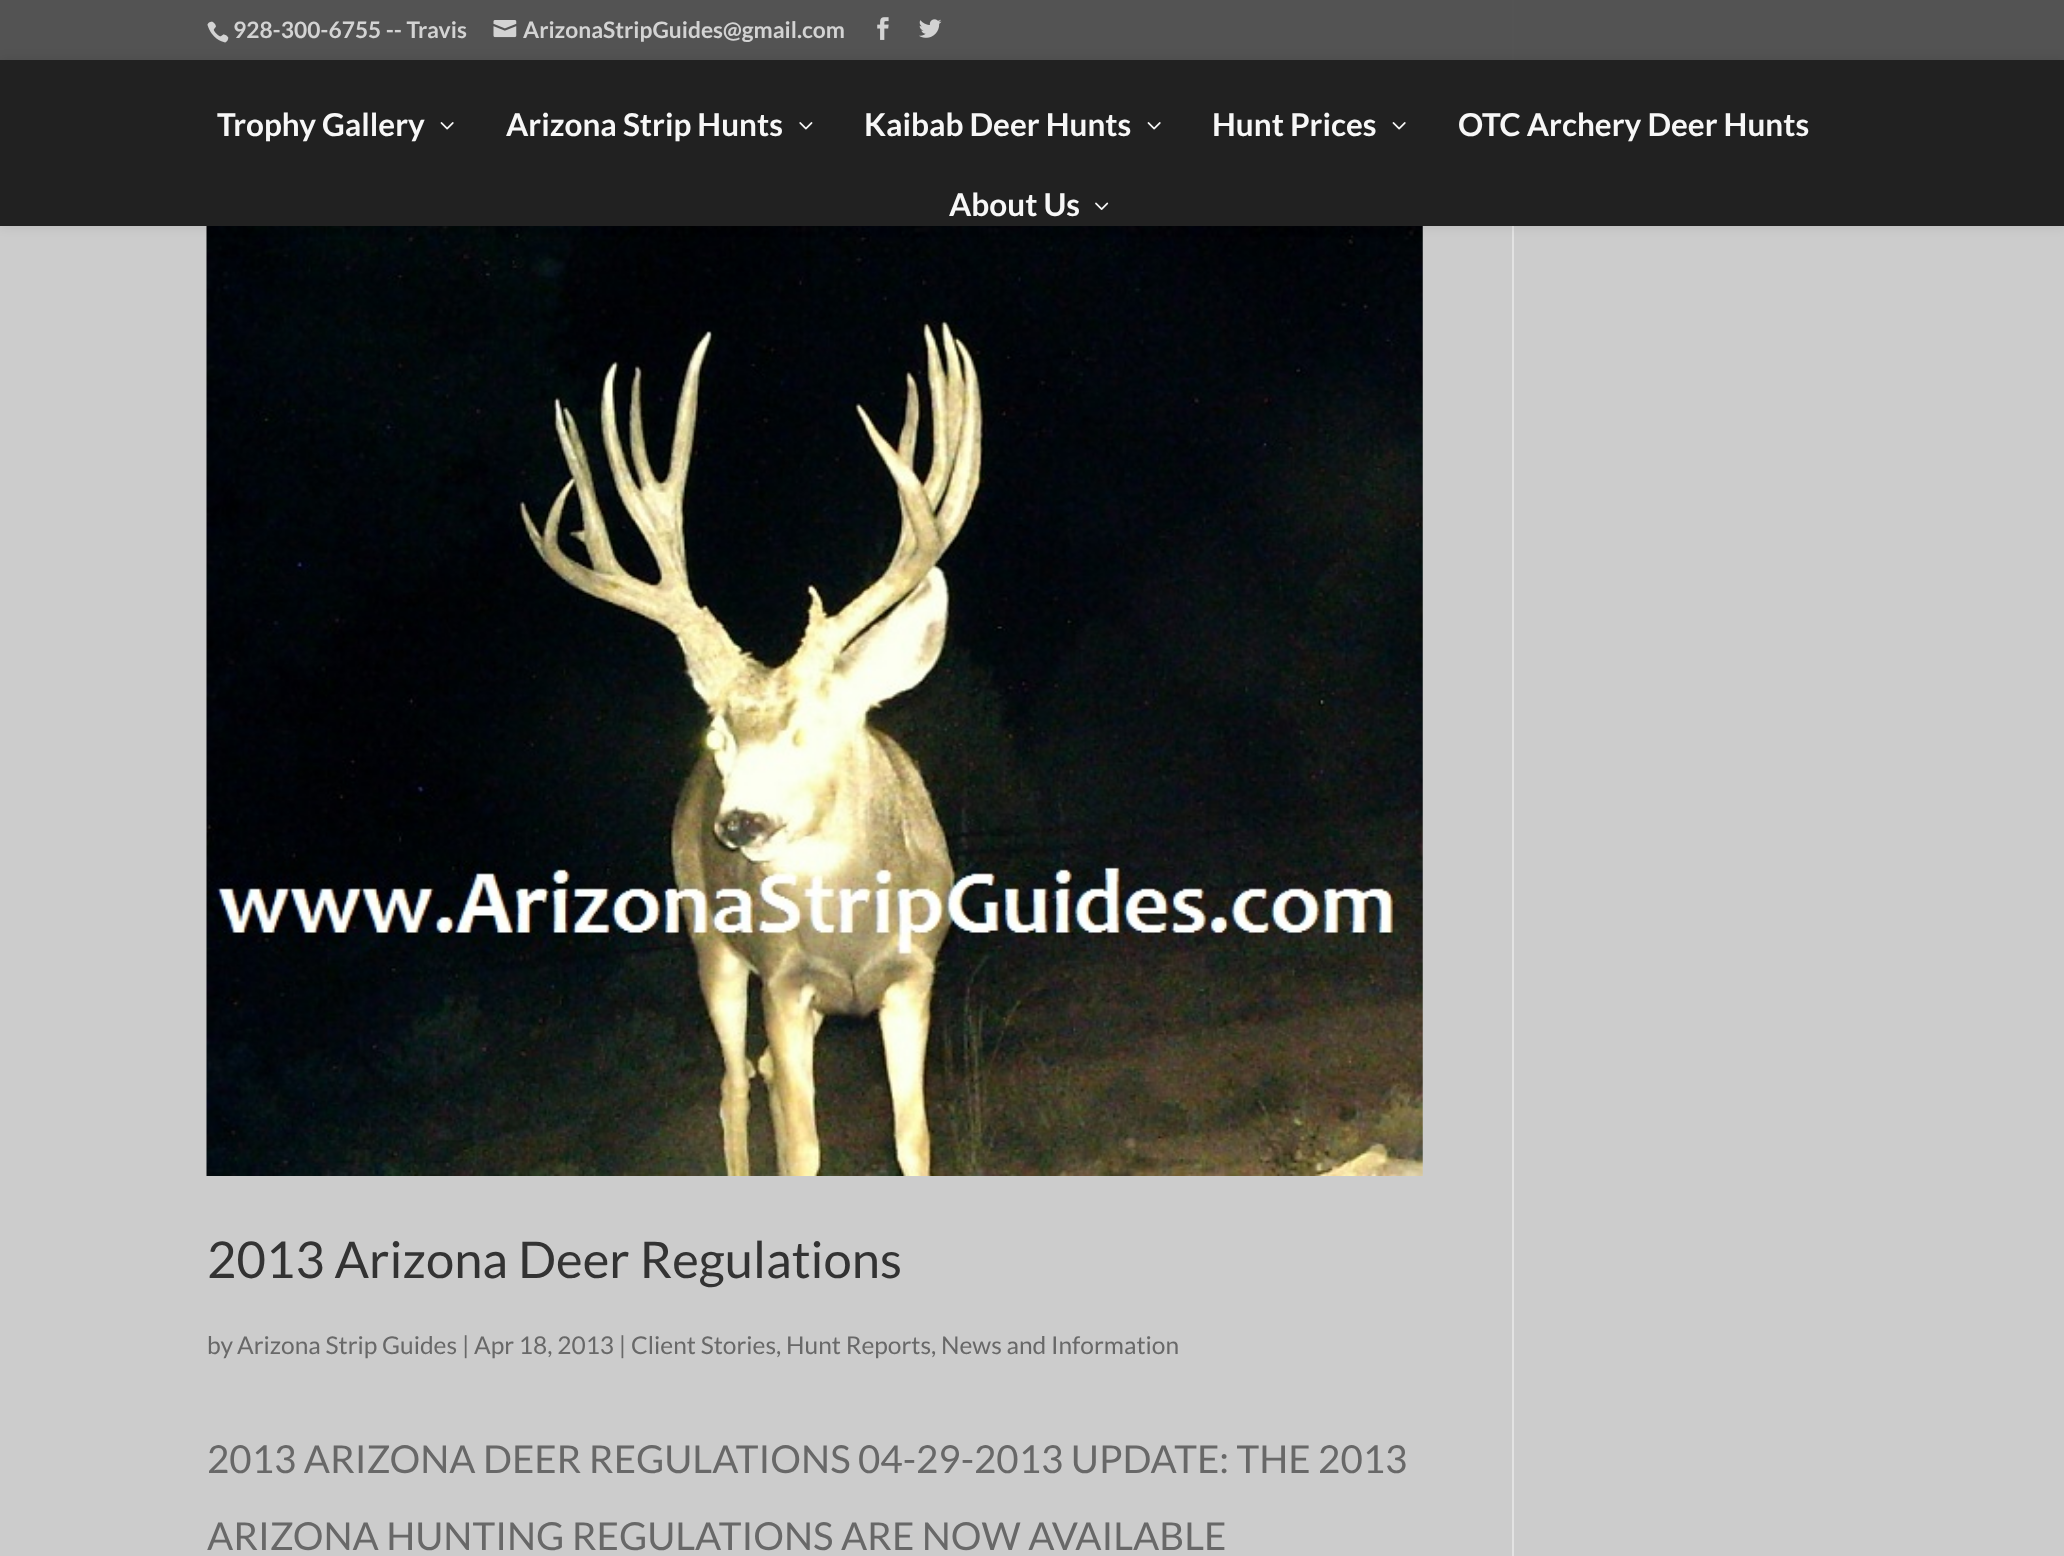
<svg xmlns="http://www.w3.org/2000/svg" width="2064" height="1556" viewBox="0 0 2064 1556">
  <style>
    .t1 { font: bold 22.75px Lato; fill: #d3d3d3; }
    .t2 { font: bold 31.5px Lato; fill: #f7f7f7; }
    .t3 { font: 50.75px Lato; fill: #333; }
    .t4 { font: 24.5px Lato; fill: #686868; }
    .t5 { font: 38.5px Lato; fill: #686868; }
  </style>
  <rect width="100%" height="100%" fill="#ccc"/>
  <rect x="1512" y="0" width="2" height="1556" fill="#e2e2e2"/>
  <rect x="0" y="0" width="2064" height="60" fill="#515151fa"/>
  <image x="207" y="21" width="22" height="22" href="images/1.png"/>
  <text x="233" y="38" class="t1">928-300-6755 -- Travis</text>
  <image x="493" y="20" width="24" height="18" href="images/2.png"/>
  <text x="523" y="38" class="t1">ArizonaStripGuides@gmail.com</text>
  <image x="877" y="17" width="12" height="23" href="images/3.png"/>
  <image x="919" y="19" width="23" height="19" href="images/4.png"/>
  <image x="206" y="226" width="1217" height="950" href="images/8.png"/>
  <rect x="0" y="60" width="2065" height="166" fill="#0000001a" filter="blur(6px)"/>
  <rect x="0" y="60" width="2064" height="166" fill="#212121"/>
  <text x="217" y="136" class="t2">Trophy Gallery</text>
  <image x="440" y="122" width="14" height="8" href="images/5.png"/>
  <text x="506" y="136" class="t2">Arizona Strip Hunts</text>
  <image x="799" y="122" width="14" height="8" href="images/6.png"/>
  <text x="864" y="136" class="t2">Kaibab Deer Hunts</text>
  <image x="1147" y="122" width="14" height="8" href="images/5.png"/>
  <text x="1212" y="136" class="t2">Hunt Prices</text>
  <image x="1392" y="122" width="14" height="8" href="images/5.png"/>
  <text x="1458" y="136" class="t2">OTC Archery Deer Hunts</text>
  <text x="949" y="216" class="t2">About Us</text>
  <image x="1095" y="202" width="14" height="8" href="images/7.png"/>
  <text x="207" y="1278" class="t3">2013 Arizona Deer Regulations</text>
  <text x="207" y="1354" class="t4">by</text>
  <text x="237" y="1354" class="t4">Arizona Strip Guides</text>
  <text x="462" y="1354" class="t4">| Apr 18, 2013 |</text>
  <text x="631" y="1354" class="t4">Client Stories</text>
  <text x="776" y="1354" class="t4">,</text>
  <text x="786" y="1354" class="t4">Hunt Reports</text>
  <text x="931" y="1354" class="t4">,</text>
  <text x="941" y="1354" class="t4">News and Information</text>
  <text x="207" y="1473" class="t5">2013 ARIZONA DEER REGULATIONS 04-29-2013 UPDATE: THE 2013</text>
  <text x="207" y="1550" class="t5">ARIZONA HUNTING REGULATIONS ARE NOW AVAILABLE</text>
</svg>
